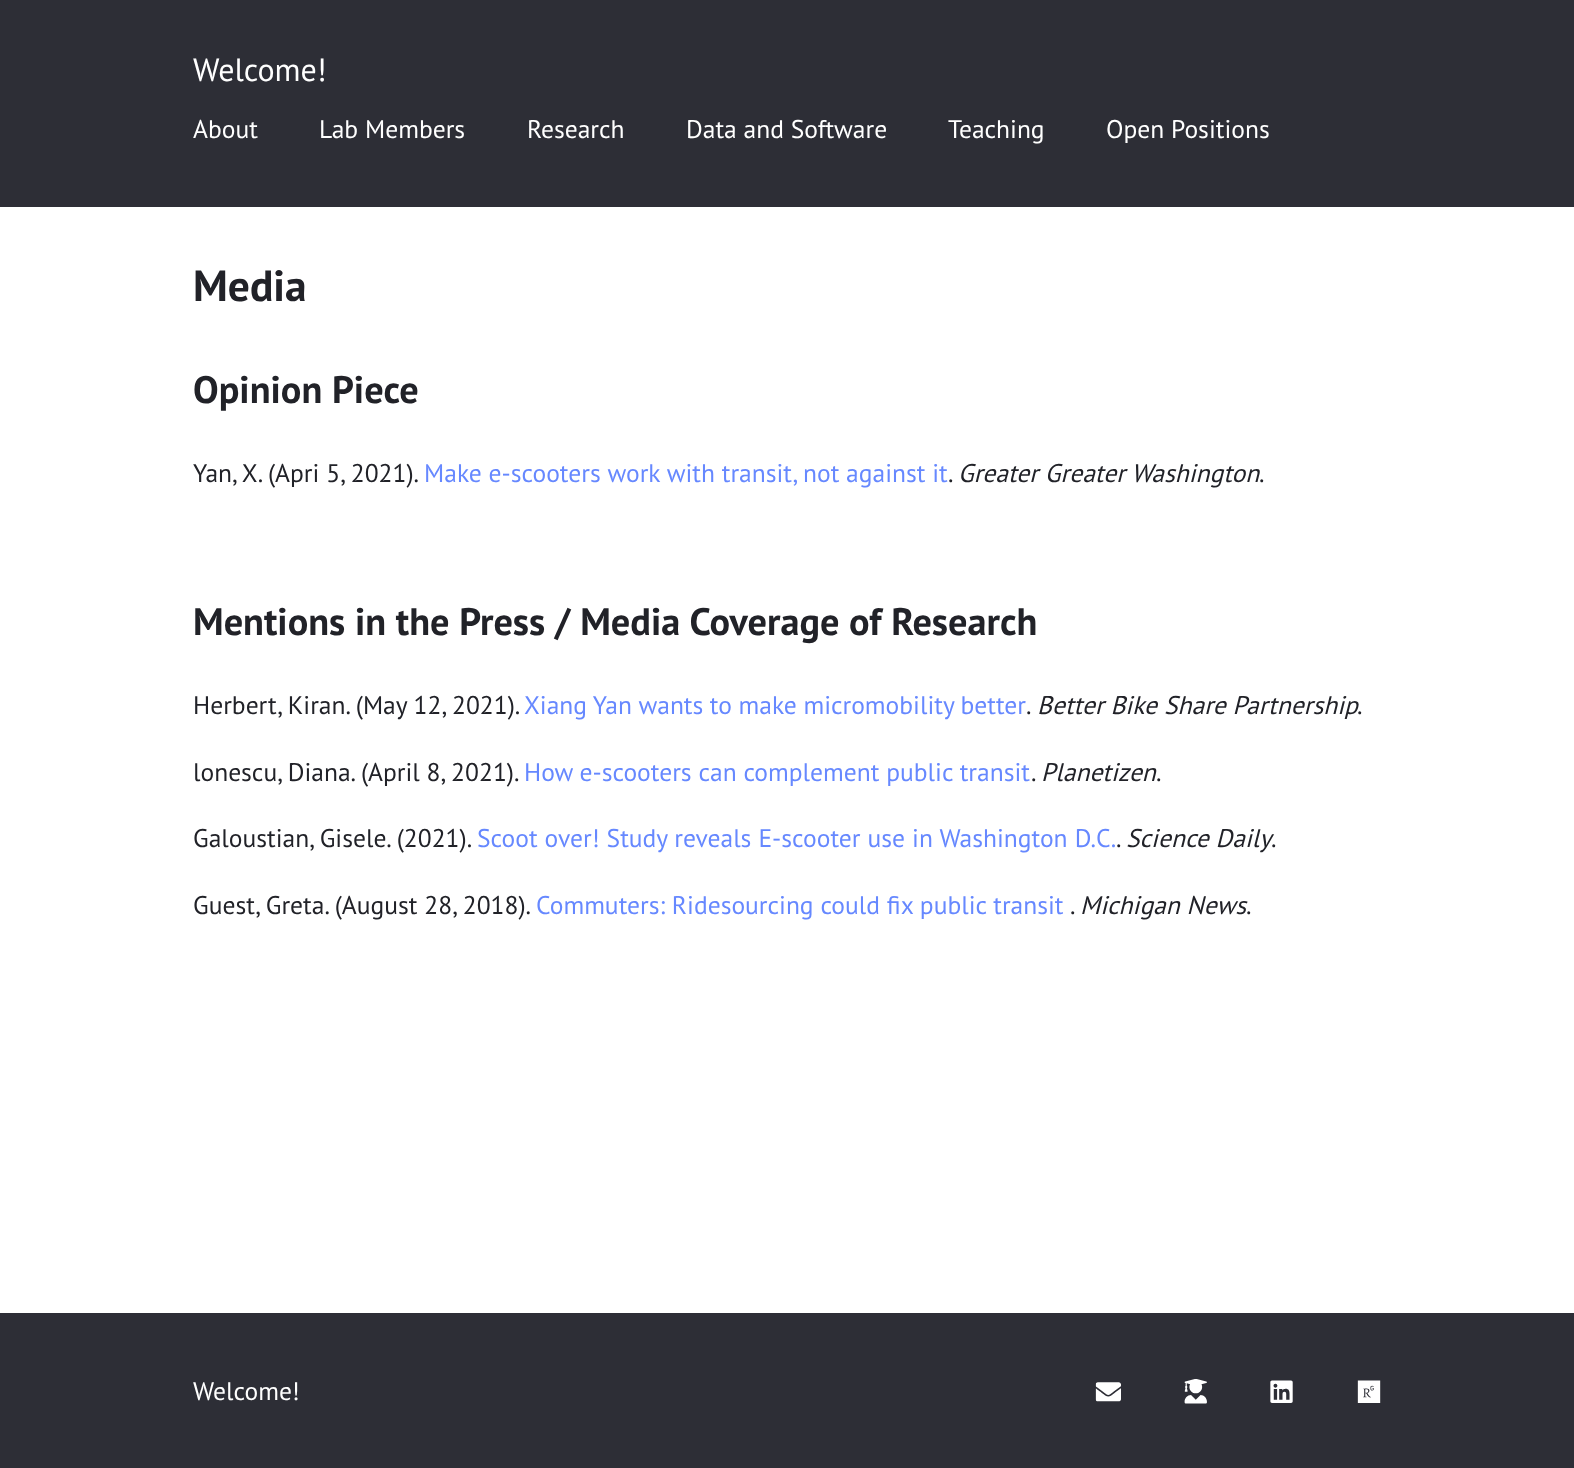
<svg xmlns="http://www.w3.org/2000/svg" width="1574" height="1468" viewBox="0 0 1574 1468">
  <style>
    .t1 { font: 32px PT Sans; fill: #fff; }
    .t2 { font: 25.55px PT Sans; fill: #fff; }
    .t3 { font: bold 43.5px PT Sans; fill: #212228; }
    .t4 { font: bold 38.3px PT Sans; fill: #212228; }
    .t5 { font: 25.55px PT Sans; fill: #212228; }
    .t6 { font: 25.55px PT Sans; fill: #68f; }
    .t7 { font: italic 25.55px PT Sans; fill: #212228; }
  </style>
  <rect width="100%" height="100%" fill="#fff"/>
  <rect x="0" y="0" width="1574" height="207" fill="#2d2e36"/>
  <text x="193" y="81" class="t1">Welcome!</text>
  <text x="193" y="138" class="t2">About</text>
  <text x="319" y="138" class="t2">Lab Members</text>
  <text x="527" y="138" class="t2">Research</text>
  <text x="686" y="138" class="t2">Data and Software</text>
  <text x="948" y="138" class="t2">Teaching</text>
  <text x="1106" y="138" class="t2">Open Positions</text>
  <text x="193" y="301" class="t3">Media</text>
  <text x="193" y="403" class="t4">Opinion Piece</text>
  <text x="193" y="482" class="t5">Yan, X. (Apri 5, 2021).</text>
  <text x="424" y="482" class="t6">Make e-scooters work with transit, not against it</text>
  <text x="948" y="482" class="t5">.</text>
  <text x="958" y="482" class="t7">Greater Greater Washington</text>
  <text x="1259" y="482" class="t5">.</text>
  <text x="193" y="635" class="t4">Mentions in the Press / Media Coverage of Research</text>
  <text x="193" y="714" class="t5">Herbert, Kiran. (May 12, 2021).</text>
  <text x="524" y="714" word-spacing="-0.25" class="t6">Xiang Yan wants to make micromobility better</text>
  <text x="1026" y="714" class="t5">.</text>
  <text x="1037" y="714" class="t7">Better Bike Share Partnership</text>
  <text x="1357" y="714" class="t5">.</text>
  <text x="193" y="781" class="t5">lonescu, Diana. (April 8, 2021).</text>
  <text x="524" y="781" class="t6">How e-scooters can complement public transit</text>
  <text x="1031" y="781" class="t5">.</text>
  <text x="1041" y="781" class="t7">Planetizen</text>
  <text x="1156" y="781" class="t5">.</text>
  <text x="193" y="847" class="t5">Galoustian, Gisele. (2021).</text>
  <text x="477" y="847" word-spacing="0.25" class="t6">Scoot over! Study reveals E-scooter use in Washington D.C.</text>
  <text x="1116" y="847" class="t5">.</text>
  <text x="1126" y="847" class="t7">Science Daily</text>
  <text x="1271" y="847" class="t5">.</text>
  <text x="193" y="914" class="t5">Guest, Greta. (August 28, 2018).</text>
  <text x="536" y="914" class="t6">Commuters: Ridesourcing could fix public transit</text>
  <text x="1070" y="914" class="t5">.</text>
  <text x="1080" y="914" class="t7">Michigan News</text>
  <text x="1246" y="914" class="t5">.</text>
  <rect x="0" y="1313" width="1574" height="155" fill="#2d2e36"/>
  <text x="193" y="1400" class="t2">Welcome!</text>
  <image x="1095" y="1382" width="26" height="20" href="images/1.png"/>
  <image x="1184" y="1379" width="23" height="25" href="images/2.png"/>
  <image x="1270" y="1380" width="23" height="23" href="images/3.png"/>
  <image x="1357" y="1380" width="24" height="23" href="images/4.png"/>
</svg>
